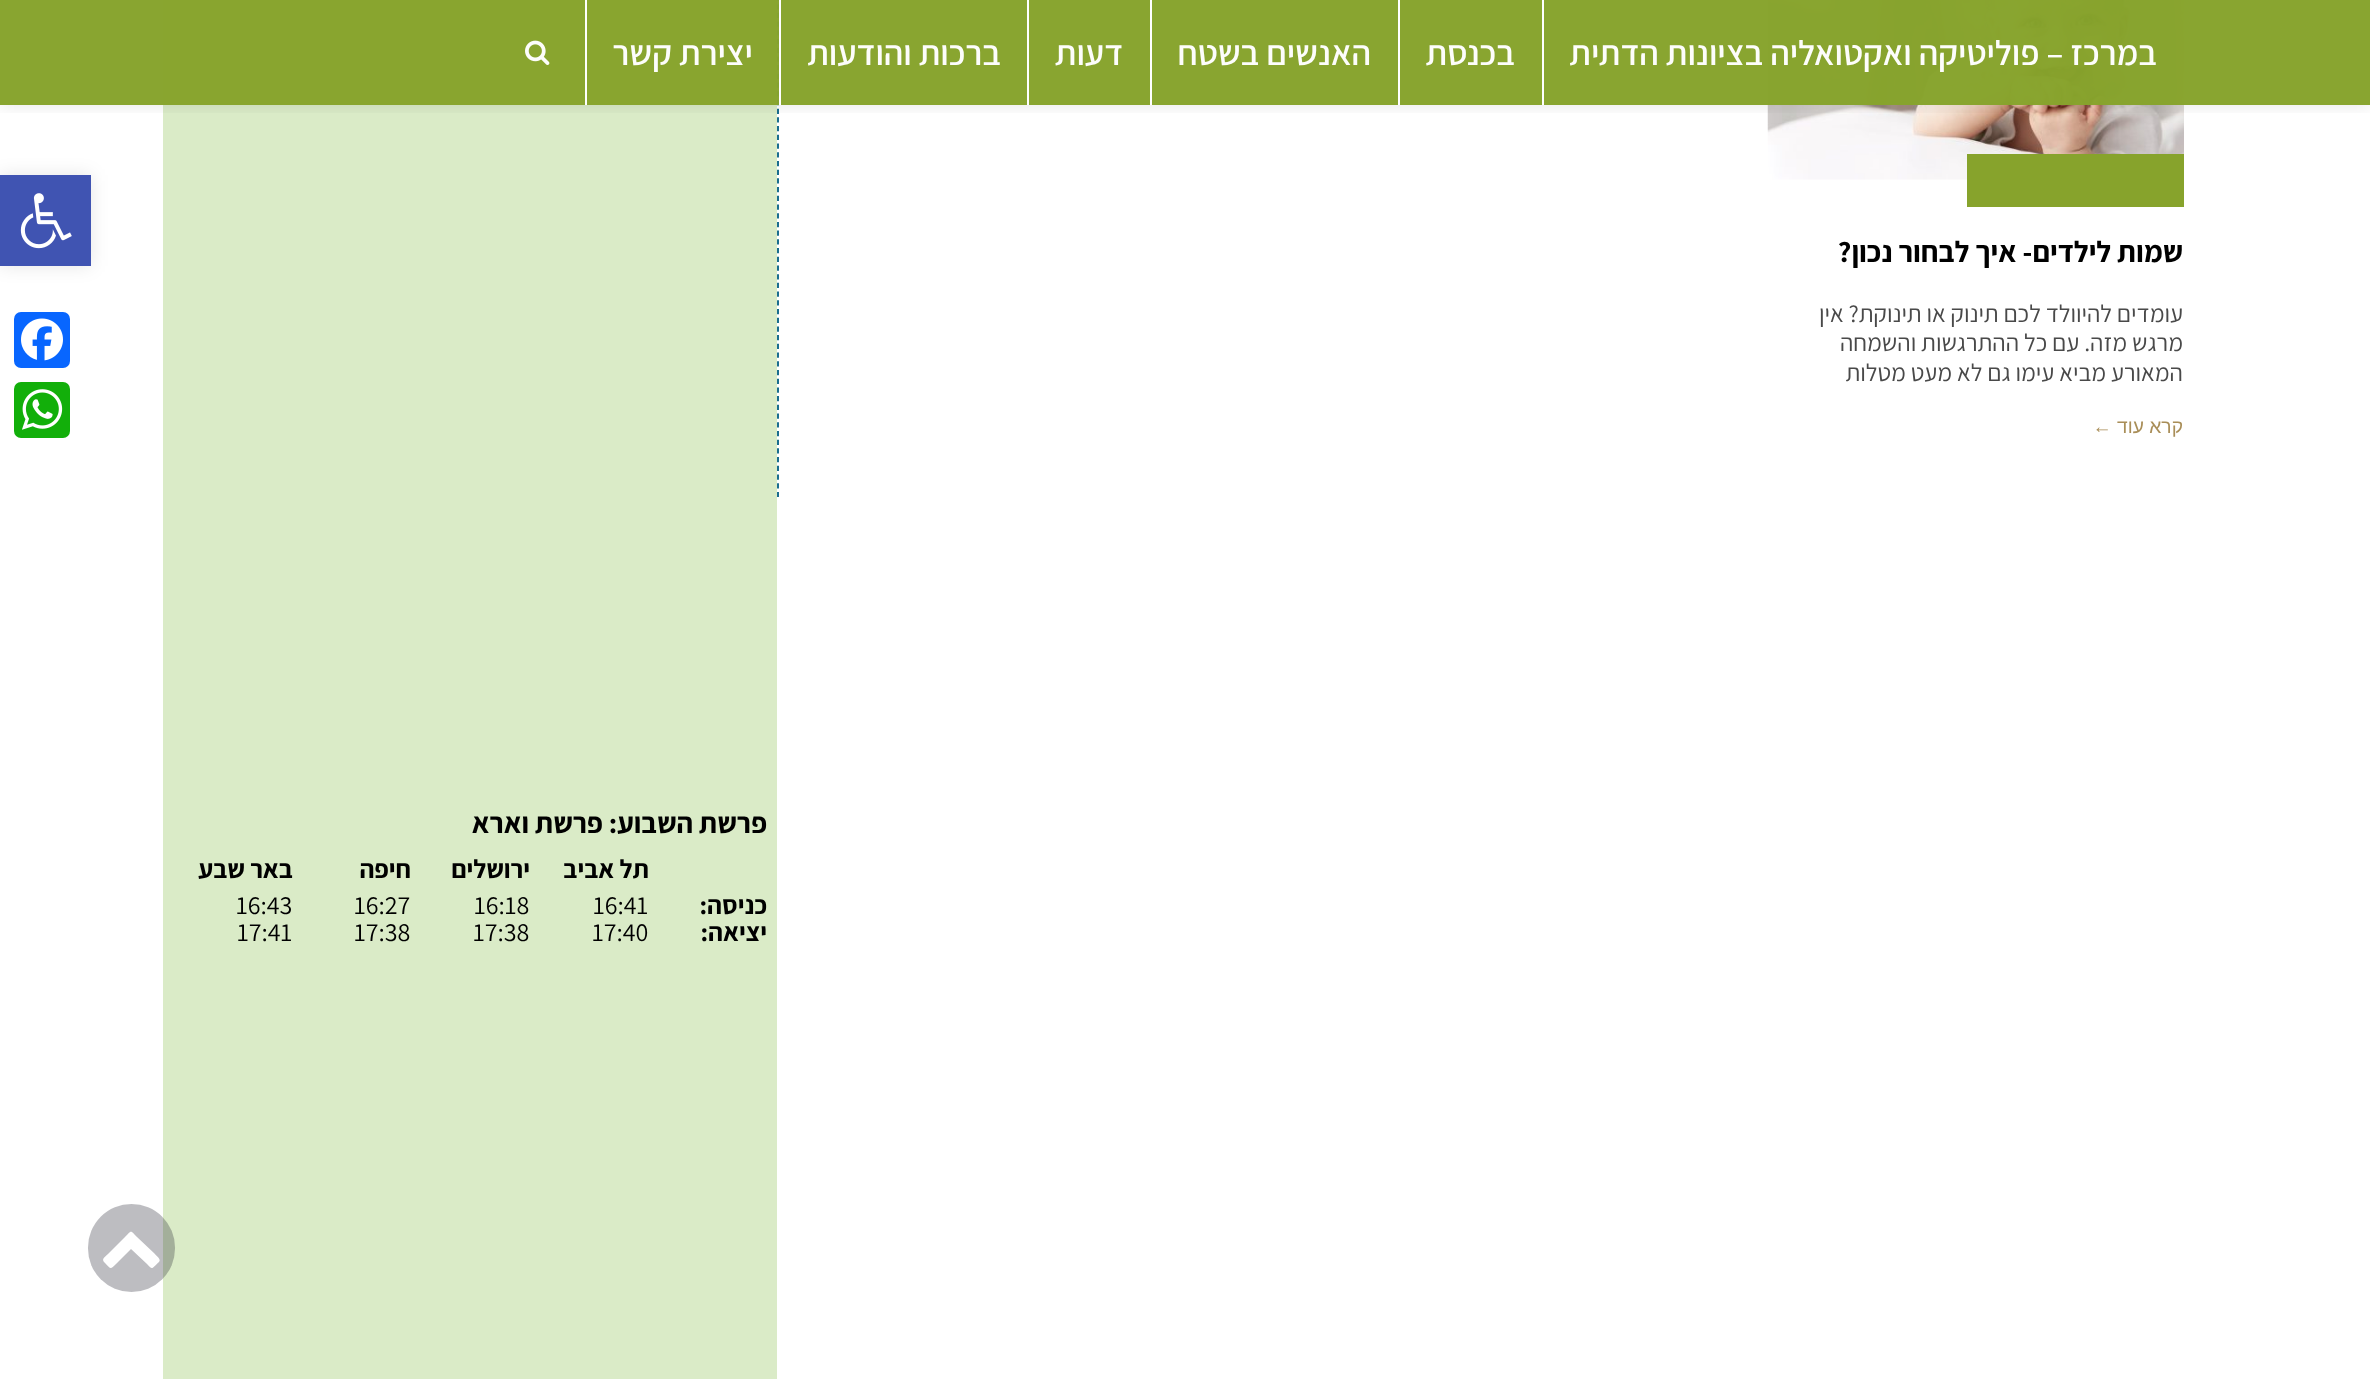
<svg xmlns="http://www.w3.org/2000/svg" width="2370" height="1379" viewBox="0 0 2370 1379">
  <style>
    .t1 { font: 600 35px Assistant; direction: rtl; fill: #fdfdfb; }
    .t2 { font: bold 29.75px Assistant; direction: rtl; fill: #000; }
    .t3 { font: 24.5px Assistant; direction: rtl; fill: #494949; }
    .t4 { font: 19.25px Liberation Sans; direction: rtl; fill: #a98e58; }
    .t5 { font: bold 28.9px Assistant; direction: rtl; fill: #000; }
    .t6 { font: bold 26px Assistant; direction: rtl; fill: #000; }
    .t7 { font: 26px Assistant; fill: #000; }
  </style>
  <defs>
    <clipPath id="clip1"><rect x="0" y="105" width="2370" height="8"/></clipPath>
  </defs>
  <rect width="100%" height="100%" fill="#fff"/>
  <path d="M778-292V497" fill="none" stroke="#025e83" stroke-width="1.8" stroke-dasharray="5.25 3.46"/>
  <image x="1767" y="0" width="417" height="180" href="images/2.png"/>
  <rect x="163" y="0" width="614" height="1379" fill="#daebc7"/>
  <g clip-path="url(#clip1)">
    <rect x="0" y="0" width="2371" height="105" fill="#0000001a" filter="blur(9px)"/>
  </g>
  <rect x="0" y="0" width="2370" height="105" fill="#87a32cfa"/>
  <rect x="1542" y="0" width="2" height="105" fill="#fff"/>
  <text x="2157" y="65" class="t1">במרכז – פוליטיקה ואקטואליה בציונות הדתית</text>
  <rect x="1398" y="0" width="2" height="105" fill="#fff"/>
  <text x="1515" y="65" class="t1">בכנסת</text>
  <rect x="1150" y="0" width="2" height="105" fill="#fff"/>
  <text x="1371" y="65" class="t1">האנשים בשטח</text>
  <rect x="1027" y="0" width="2" height="105" fill="#fff"/>
  <text x="1123" y="65" class="t1">דעות</text>
  <rect x="779" y="0" width="2" height="105" fill="#fff"/>
  <text x="1001" y="65" class="t1">ברכות והודעות</text>
  <rect x="585" y="0" width="2" height="105" fill="#fefffe"/>
  <text x="753" y="65" class="t1">יצירת קשר</text>
  <image x="525" y="40" width="25" height="25" href="images/1.png"/>
  <rect x="1967" y="154" width="217" height="53" fill="#87a32c"/>
  <text x="2183" y="262" class="t2">שמות לילדים- איך לבחור נכון?</text>
  <text x="2183" y="322" class="t3">עומדים להיוולד לכם תינוק או תינוקת? אין</text>
  <text x="2183" y="351" class="t3">מרגש מזה. עם כל ההתרגשות והשמחה</text>
  <text x="2183" y="381" class="t3">המאורע מביא עימו גם לא מעט מטלות</text>
  <text x="2183" y="433" class="t4">קרא עוד ←</text>
  <text x="767" y="833" class="t5">פרשת השבוע: פרשת וארא</text>
  <text x="767" y="914" class="t6">כניסה:</text>
  <text x="767" y="941" class="t6">יציאה:</text>
  <text x="649" y="878" class="t6">תל אביב</text>
  <text x="593" y="914" class="t7">16:41</text>
  <text x="592" y="941" class="t7">17:40</text>
  <text x="530" y="878" class="t6">ירושלים</text>
  <text x="474" y="914" class="t7">16:18</text>
  <text x="473" y="941" class="t7">17:38</text>
  <text x="411" y="878" class="t6">חיפה</text>
  <text x="354" y="914" class="t7">16:27</text>
  <text x="354" y="941" class="t7">17:38</text>
  <text x="293" y="878" class="t6">באר שבע</text>
  <text x="236" y="914" class="t7">16:43</text>
  <text x="237" y="941" class="t7">17:41</text>
  <rect x="0" y="175" width="91" height="91" fill="#0000001a" filter="blur(9px)"/>
  <rect x="0" y="175" width="91" height="91" fill="#4054b2"/>
  <image x="20" y="193" width="52" height="56" href="images/3.png"/>
  <rect x="14" y="312" width="56" height="56" rx="7" fill="#0866ff"/>
  <image x="21" y="318" width="42" height="43" href="images/4.png"/>
  <rect x="14" y="382" width="56" height="56" rx="7" fill="#12af0a"/>
  <image x="22" y="389" width="41" height="41" href="images/5.png"/>
  <rect x="88" y="1204" width="87" height="88" rx="43.5" fill="#2525314d"/>
  <path d="M159 1262C152 1268 153 1271 147 1264L131 1249L116 1264C110 1270 111 1269 105 1263C101 1259 104 1258 108 1254L125 1237C132 1230 130 1230 137 1237L155 1254C155 1255 162 1259 159 1262Z" fill="#fff"/>
</svg>
